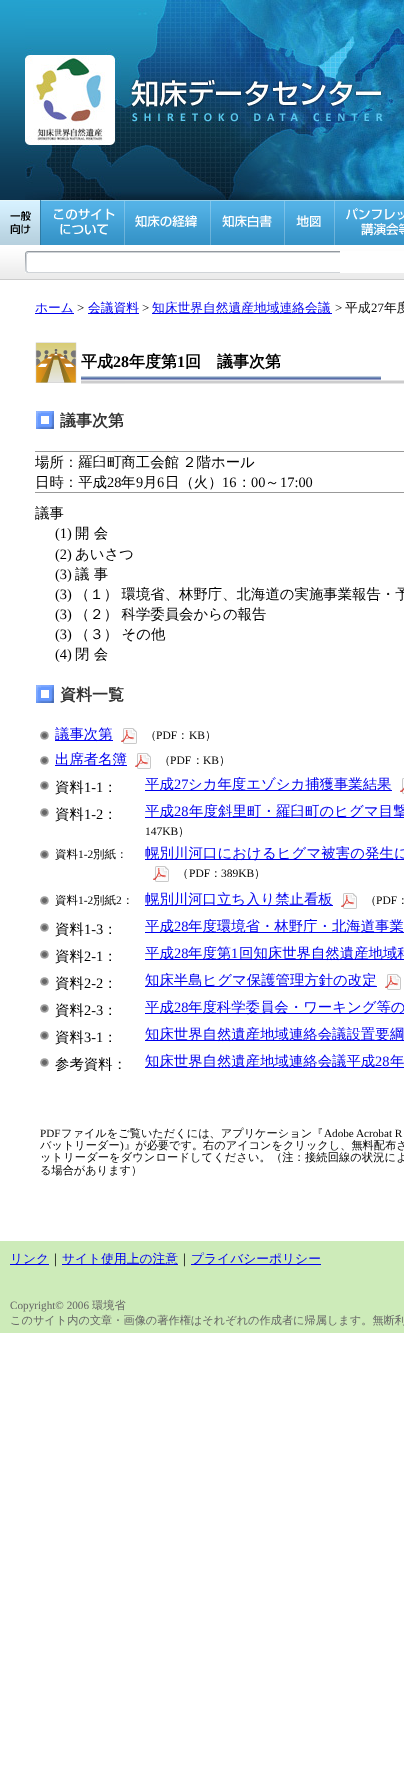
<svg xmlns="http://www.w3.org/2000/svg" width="404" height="1788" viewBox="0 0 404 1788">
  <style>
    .t1 { font: 500 12.75px WenQuanYi Zen Hei; fill: #00e; }
    .t2 { font: 12.75px Liberation Serif; fill: #000; }
    .t3 { font: 500 12.75px WenQuanYi Zen Hei; fill: #000; }
    .t4 { font: bold 16px WenQuanYi Zen Hei; fill: #000; }
    .t5 { font: bold 16px Liberation Serif; fill: #000; }
    .t6 { font: bold 16px WenQuanYi Zen Hei; fill: #333; }
    .t7 { font: 500 14.4px WenQuanYi Zen Hei; fill: #000; }
    .t8 { font: 14.4px Liberation Serif; fill: #000; }
    .t9 { font: 500 14.4px WenQuanYi Zen Hei; fill: #00e; }
    .t10 { font: 500 11.5px WenQuanYi Zen Hei; fill: #000; }
    .t11 { font: 11.5px Liberation Serif; fill: #000; }
    .t12 { font: 14.4px Liberation Serif; fill: #00e; }
    .t13 { font: 500 14.4px WenQuanYi Zen Hei; letter-spacing: 0.1px; fill: #00e; }
    .t14 { font: 14.4px Liberation Serif; letter-spacing: 0.1px; fill: #00e; }
    .t15 { font: 11.2px Liberation Serif; fill: #000; }
    .t16 { font: 500 11.2px WenQuanYi Zen Hei; fill: #000; }
    .t17 { font: 500 11.2px WenQuanYi Zen Hei; letter-spacing: 0.15px; fill: #000; }
    .t18 { font: 11.2px Liberation Serif; fill: #666; }
    .t19 { font: 500 11.2px WenQuanYi Zen Hei; fill: #666; }
  </style>
  <rect width="100%" height="100%" fill="#fff"/>
  <image x="0" y="0" width="404" height="280" href="images/1.png"/>
  <image x="25" y="0" width="379" height="200" href="images/2.png"/>
  <image x="0" y="200" width="41" height="45" href="images/3.png"/>
  <image x="41" y="200" width="84" height="45" href="images/4.png"/>
  <image x="125" y="200" width="86" height="45" href="images/5.png"/>
  <image x="211" y="200" width="74" height="45" href="images/6.png"/>
  <image x="285" y="200" width="50" height="45" href="images/7.png"/>
  <image x="335" y="200" width="69" height="45" href="images/8.png"/>
  <image x="0" y="245" width="404" height="34" href="images/9.png"/>
  <image x="25" y="251" width="315" height="22" href="images/10.png"/>
  <rect x="340" y="251" width="64" height="22" fill="#fff"/>
  <rect x="35" y="313" width="39" height="1" fill="#00e"/>
  <text x="35" y="312" class="t1">ホーム</text>
  <text x="77" y="312" class="t2">&gt;</text>
  <rect x="88" y="313" width="51" height="1" fill="#00e"/>
  <text x="88" y="312" class="t1">会議資料</text>
  <text x="142" y="312" class="t2">&gt;</text>
  <rect x="152" y="313" width="180" height="1" fill="#00e"/>
  <text x="152" y="312" class="t1">知床世界自然遺産地域連絡会議</text>
  <text x="335" y="312" class="t2">&gt;</text>
  <text x="345" y="312" class="t3">平成</text>
  <text x="371" y="312" class="t2">27</text>
  <text x="384" y="312" class="t3">年度</text>
  <image x="81" y="376" width="323" height="8" href="images/11.png"/>
  <image x="35" y="342" width="42" height="41" href="images/12.png"/>
  <text x="81" y="367" class="t4">平成</text>
  <text x="113" y="367" class="t5">28</text>
  <text x="129" y="367" class="t4">年度第</text>
  <text x="177" y="367" class="t5">1</text>
  <text x="185" y="367" class="t4">回　議事次第</text>
  <image x="36" y="411" width="18" height="18" href="images/13.png"/>
  <text x="60" y="426" class="t6">議事次第</text>
  <rect x="35" y="451" width="369" height="1" fill="#999"/>
  <rect x="35" y="492" width="369" height="1" fill="#999"/>
  <text x="35" y="467" word-spacing="-1" class="t7">場所：羅臼町商工会館 ２階ホール</text>
  <text x="35" y="487" class="t7">日時：平成</text>
  <text x="107" y="487" class="t8">28</text>
  <text x="121" y="487" class="t7">年</text>
  <text x="136" y="487" class="t8">9</text>
  <text x="143" y="487" class="t7">月</text>
  <text x="157" y="487" class="t8">6</text>
  <text x="165" y="487" class="t7">日（火）</text>
  <text x="222" y="487" class="t8">16</text>
  <text x="237" y="487" class="t7">：</text>
  <text x="251" y="487" class="t8">00</text>
  <text x="265" y="487" class="t7">～</text>
  <text x="280" y="487" class="t8">17:00</text>
  <text x="35" y="518" class="t7">議事</text>
  <text x="55" y="538" class="t8">(1)</text>
  <text x="75" y="538" class="t7">開 会</text>
  <text x="55" y="559" class="t8">(2)</text>
  <text x="75" y="559" class="t7">あいさつ</text>
  <text x="55" y="579" class="t8">(3)</text>
  <text x="75" y="579" class="t7">議 事</text>
  <text x="55" y="599" class="t8">(3)</text>
  <text x="75" y="599" word-spacing="-1" class="t7">（１） 環境省、林野庁、北海道の実施事業報告・予</text>
  <text x="55" y="619" class="t8">(3)</text>
  <text x="75" y="619" word-spacing="-1" class="t7">（２） 科学委員会からの報告</text>
  <text x="55" y="639" class="t8">(3)</text>
  <text x="75" y="639" word-spacing="-1" class="t7">（３） その他</text>
  <text x="55" y="659" class="t8">(4)</text>
  <text x="75" y="659" class="t7">閉 会</text>
  <image x="36" y="685" width="18" height="18" href="images/13.png"/>
  <text x="60" y="700" class="t6">資料一覧</text>
  <image x="40" y="731" width="9" height="9" href="images/14.png"/>
  <rect x="55" y="740" width="58" height="1" fill="#00e"/>
  <text x="55" y="739" class="t9">議事次第</text>
  <image x="121" y="728" width="16" height="16" href="images/15.png"/>
  <text x="145" y="739" class="t10">（</text>
  <text x="156" y="739" class="t11">PDF</text>
  <text x="177" y="739" class="t10">：</text>
  <text x="189" y="739" class="t11">KB</text>
  <text x="205" y="739" class="t10">）</text>
  <image x="40" y="756" width="9" height="9" href="images/14.png"/>
  <rect x="55" y="765" width="72" height="1" fill="#00e"/>
  <text x="55" y="764" class="t9">出席者名簿</text>
  <image x="135" y="753" width="16" height="16" href="images/15.png"/>
  <text x="159" y="764" class="t10">（</text>
  <text x="170" y="764" class="t11">PDF</text>
  <text x="192" y="764" class="t10">：</text>
  <text x="203" y="764" class="t11">KB</text>
  <text x="219" y="764" class="t10">）</text>
  <image x="40" y="781" width="9" height="9" href="images/14.png"/>
  <text x="55" y="792" class="t7">資料</text>
  <text x="84" y="792" class="t8">1-1</text>
  <text x="103" y="792" class="t7">：</text>
  <rect x="145" y="790" width="247" height="1" fill="#00e"/>
  <text x="145" y="789" class="t9">平成</text>
  <text x="174" y="789" class="t12">27</text>
  <text x="188" y="789" class="t9">シカ年度エゾシカ捕獲事業結果</text>
  <image x="400" y="778" width="4" height="16" href="images/16.png"/>
  <image x="40" y="808" width="9" height="9" href="images/14.png"/>
  <text x="55" y="819" class="t7">資料</text>
  <text x="84" y="819" class="t8">1-2</text>
  <text x="103" y="819" class="t7">：</text>
  <rect x="145" y="817" width="259" height="1" fill="#00e"/>
  <text x="145" y="816" class="t13">平成</text>
  <text x="174" y="816" class="t14">28</text>
  <text x="189" y="816" class="t13">年度斜里町・羅臼町のヒグマ目撃</text>
  <text x="145" y="835" class="t11">147KB</text>
  <text x="178" y="835" class="t10">）</text>
  <image x="40" y="850" width="9" height="9" href="images/14.png"/>
  <text x="55" y="858" class="t10">資料</text>
  <text x="78" y="858" class="t11">1-2</text>
  <text x="93" y="858" class="t10">別紙：</text>
  <rect x="145" y="859" width="259" height="1" fill="#00e"/>
  <text x="145" y="858" class="t13">幌別川河口におけるヒグマ被害の発生に</text>
  <image x="153" y="866" width="16" height="16" href="images/15.png"/>
  <text x="177" y="877" class="t10">（</text>
  <text x="189" y="877" class="t11">PDF</text>
  <text x="210" y="877" class="t10">：</text>
  <text x="221" y="877" class="t11">389KB</text>
  <text x="254" y="877" class="t10">）</text>
  <image x="40" y="896" width="9" height="9" href="images/14.png"/>
  <text x="55" y="904" class="t10">資料</text>
  <text x="78" y="904" class="t11">1-2</text>
  <text x="93" y="904" class="t10">別紙</text>
  <text x="116" y="904" class="t11">2</text>
  <text x="122" y="904" class="t10">：</text>
  <rect x="145" y="905" width="188" height="1" fill="#00e"/>
  <text x="145" y="904" class="t9">幌別川河口立ち入り禁止看板</text>
  <image x="341" y="893" width="16" height="16" href="images/15.png"/>
  <text x="365" y="904" class="t10">（</text>
  <text x="376" y="904" class="t11">PDF</text>
  <text x="397" y="904" class="t10">：</text>
  <image x="40" y="923" width="9" height="9" href="images/14.png"/>
  <text x="55" y="934" class="t7">資料</text>
  <text x="84" y="934" class="t8">1-3</text>
  <text x="103" y="934" class="t7">：</text>
  <rect x="145" y="932" width="259" height="1" fill="#00e"/>
  <text x="145" y="931" class="t9">平成</text>
  <text x="174" y="931" class="t12">28</text>
  <text x="188" y="931" class="t9">年度環境省・林野庁・北海道事業</text>
  <image x="40" y="950" width="9" height="9" href="images/14.png"/>
  <text x="55" y="961" class="t7">資料</text>
  <text x="84" y="961" class="t8">2-1</text>
  <text x="103" y="961" class="t7">：</text>
  <rect x="145" y="959" width="259" height="1" fill="#00e"/>
  <text x="145" y="958" class="t9">平成</text>
  <text x="174" y="958" class="t12">28</text>
  <text x="188" y="958" class="t9">年度第</text>
  <text x="231" y="958" class="t12">1</text>
  <text x="239" y="958" class="t9">回知床世界自然遺産地域科</text>
  <image x="40" y="977" width="9" height="9" href="images/14.png"/>
  <text x="55" y="988" class="t7">資料</text>
  <text x="84" y="988" class="t8">2-2</text>
  <text x="103" y="988" class="t7">：</text>
  <rect x="145" y="986" width="232" height="1" fill="#00e"/>
  <text x="145" y="985" class="t9">知床半島ヒグマ保護管理方針の改定</text>
  <image x="385" y="974" width="16" height="16" href="images/15.png"/>
  <image x="40" y="1004" width="9" height="9" href="images/14.png"/>
  <text x="55" y="1015" class="t7">資料</text>
  <text x="84" y="1015" class="t8">2-3</text>
  <text x="103" y="1015" class="t7">：</text>
  <rect x="145" y="1013" width="259" height="1" fill="#00e"/>
  <text x="145" y="1012" class="t9">平成</text>
  <text x="174" y="1012" class="t12">28</text>
  <text x="188" y="1012" class="t9">年度科学委員会・ワーキング等の</text>
  <image x="40" y="1031" width="9" height="9" href="images/14.png"/>
  <text x="55" y="1042" class="t7">資料</text>
  <text x="84" y="1042" class="t8">3-1</text>
  <text x="103" y="1042" class="t7">：</text>
  <rect x="145" y="1040" width="259" height="1" fill="#00e"/>
  <text x="145" y="1039" class="t9">知床世界自然遺産地域連絡会議設置要綱</text>
  <image x="40" y="1058" width="9" height="9" href="images/14.png"/>
  <text x="55" y="1069" class="t7">参考資料：</text>
  <rect x="145" y="1067" width="259" height="1" fill="#00e"/>
  <text x="145" y="1066" class="t9">知床世界自然遺産地域連絡会議平成</text>
  <text x="375" y="1066" class="t12">28</text>
  <text x="390" y="1066" class="t9">年</text>
  <text x="40" y="1137" class="t15">PDF</text>
  <text x="61" y="1137" class="t16">ファイルをご覧いただくには、アプリケーション『</text>
  <text x="324" y="1137" class="t15">Adobe Acrobat R</text>
  <text x="40" y="1149" class="t16">バットリーダー</text>
  <text x="120" y="1149" class="t15">)</text>
  <text x="124" y="1149" class="t16">』が必要です。右のアイコンをクリックし、無料配布さ</text>
  <text x="40" y="1161" class="t17">ットリーダーをダウンロードしてください。（注：接続回線の状況によ</text>
  <text x="40" y="1174" class="t16">る場合があります）</text>
  <rect x="0" y="1241" width="404" height="92" fill="#cdebb9"/>
  <rect x="10" y="1264" width="39" height="1" fill="#00e"/>
  <text x="10" y="1263" class="t1">リンク</text>
  <text x="49" y="1263" class="t3">｜</text>
  <rect x="62" y="1264" width="116" height="1" fill="#00e"/>
  <text x="62" y="1263" class="t1">サイト使用上の注意</text>
  <text x="178" y="1263" class="t3">｜</text>
  <rect x="191" y="1264" width="130" height="1" fill="#00e"/>
  <text x="191" y="1263" class="t1">プライバシーポリシー</text>
  <text x="10" y="1309" class="t18">Copyright© 2006</text>
  <text x="92" y="1309" class="t19">環境省</text>
  <text x="10" y="1324" class="t19">このサイト内の文章・画像の著作権はそれぞれの作成者に帰属します。無断利</text>
</svg>
